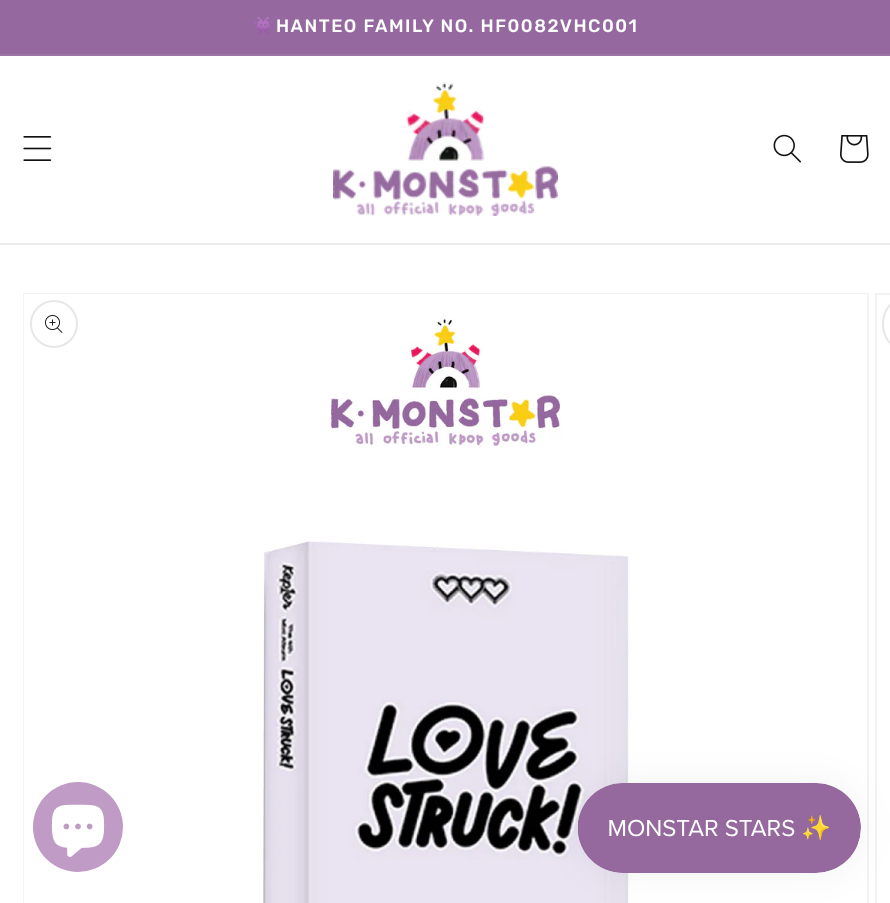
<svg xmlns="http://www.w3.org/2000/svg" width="890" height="903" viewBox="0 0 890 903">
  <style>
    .t1 { font: 18px Noto Color Emoji; letter-spacing: 1.5px; fill: #fff; }
    .t2 { font: 500 18px Rubik; letter-spacing: 1.5px; fill: #fff; }
  </style>
  <rect width="100%" height="100%" fill="#fff"/>
  <rect x="0" y="0" width="890" height="54" fill="#95699f"/>
  <rect x="0" y="54" width="890" height="2" fill="#9d75a7"/>
  <text x="252" y="32" class="t1">👾</text>
  <text x="276" y="32" class="t2">HANTEO FAMILY NO. HF0082VHC001</text>
  <rect x="0" y="243" width="890" height="2" fill="#ececec"/>
  <image x="23" y="136" width="29" height="25" href="images/1.png"/>
  <image x="333" y="82" width="225" height="134" href="images/2.png"/>
  <image x="773" y="134" width="28" height="29" href="images/3.png"/>
  <image x="840" y="135" width="29" height="28" href="images/4.png"/>
  <rect x="24" y="294" width="844" height="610" fill="none" stroke="#f3f3f3" stroke-width="2"/>
  <image x="24" y="294" width="843" height="609" href="images/5.png"/>
  <circle cx="54" cy="324" r="23" fill="none" stroke="#e7e7e7" stroke-width="2"/>
  <image x="45" y="315" width="18" height="18" href="images/6.png"/>
  <rect x="876" y="294" width="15" height="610" fill="none" stroke="#f3f3f3" stroke-width="2"/>
  <rect x="883" y="301" width="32" height="46" rx="23" fill="none" stroke="#e7e7e7" stroke-width="2"/>
  <circle cx="78" cy="827" r="45" fill="#bf9bc6"/>
  <image x="51" y="804" width="54" height="53" href="images/7.png"/>
  <rect x="578" y="783" width="283" height="90" rx="45" fill="#0000000d" filter="blur(19px)"/>
  <image x="577" y="783" width="284" height="90" href="images/8.png"/>
</svg>
